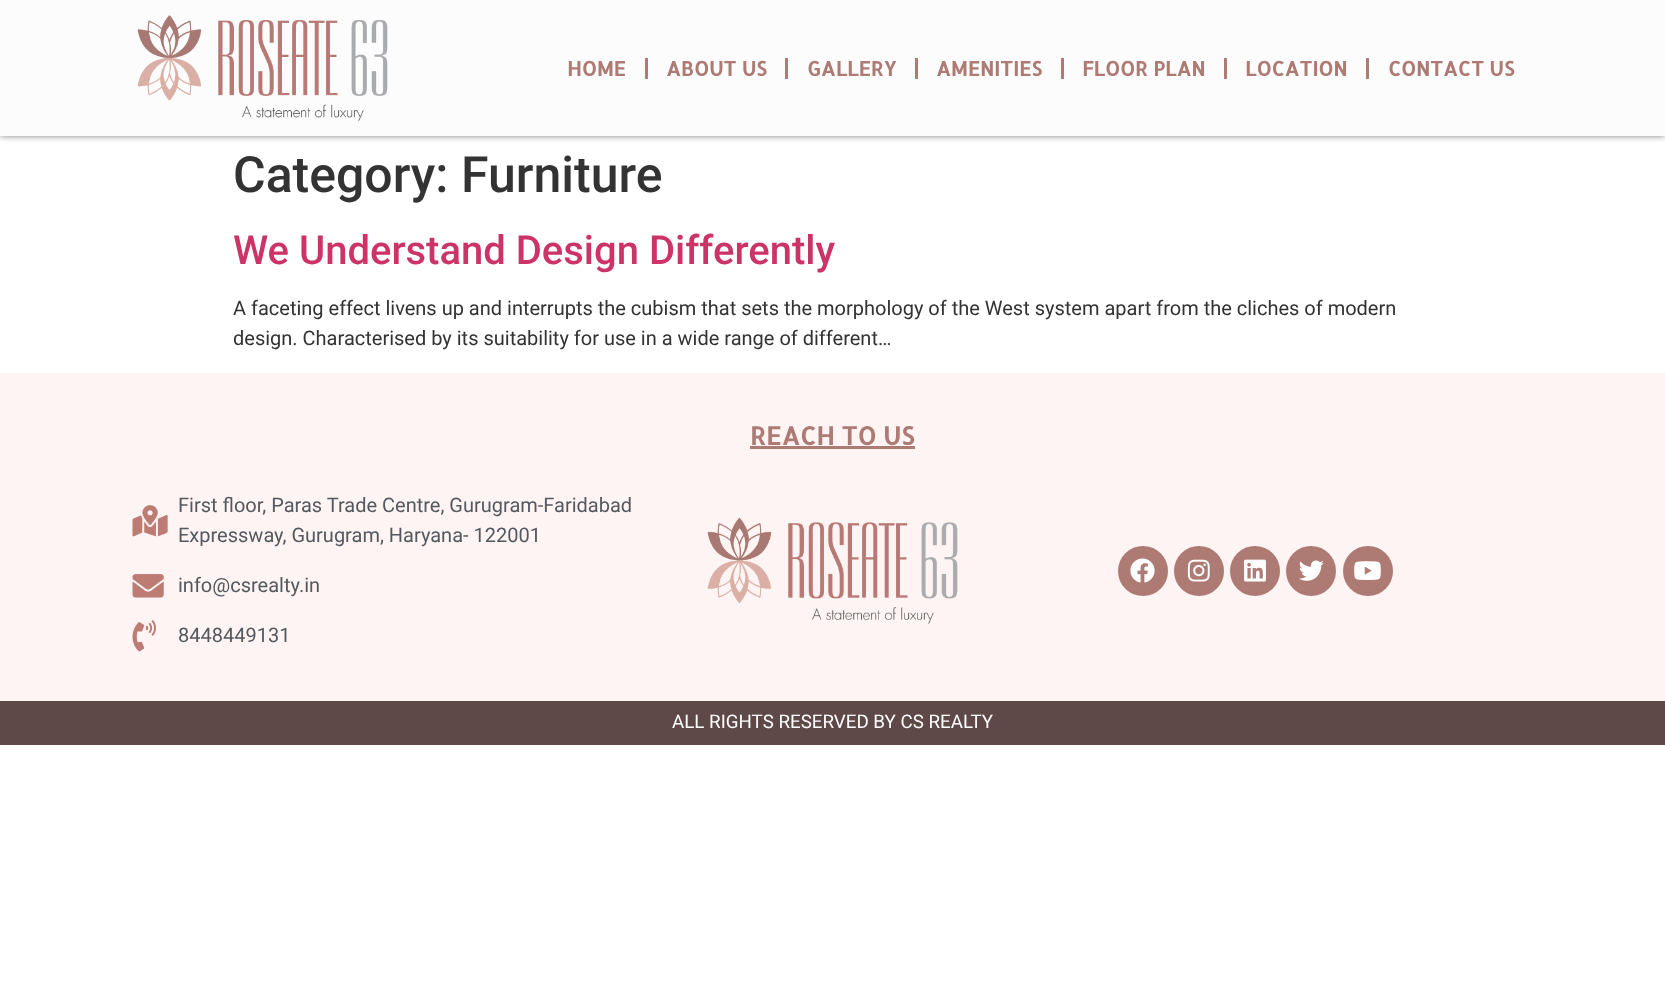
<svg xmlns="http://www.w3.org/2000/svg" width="1665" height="984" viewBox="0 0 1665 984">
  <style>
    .t1 { font: bold 20px Allerta; fill: #ad7b74; }
    .t2 { font: 500 50px Roboto; fill: #333; }
    .t3 { font: 500 40px Roboto; fill: #c36; }
    .t4 { font: 20px Roboto; fill: #333; }
    .t5 { font: bold 25px Allerta; fill: #ad7b74; }
    .t6 { font: 20px Roboto; fill: #54595f; }
    .t7 { font: 18.75px Roboto; fill: #fff; }
  </style>
  <rect width="100%" height="100%" fill="#fff"/>
  <rect x="0" y="0" width="1665" height="136" fill="#00000080" filter="blur(3px)"/>
  <rect x="0" y="0" width="1665" height="136" fill="#fcfcfc"/>
  <image x="137" y="15" width="251" height="107" href="images/1.png"/>
  <text x="567" y="76" class="t1">HOME</text>
  <rect x="645" y="58" width="3" height="21" fill="#ad7b74"/>
  <text x="666" y="76" class="t1">ABOUT US</text>
  <rect x="785" y="58" width="3" height="21" fill="#ad7b74"/>
  <text x="807" y="76" class="t1">GALLERY</text>
  <rect x="915" y="58" width="3" height="21" fill="#ad7b74"/>
  <text x="936" y="76" class="t1">AMENITIES</text>
  <rect x="1061" y="58" width="3" height="21" fill="#ad7b74"/>
  <text x="1082" y="76" class="t1">FLOOR PLAN</text>
  <rect x="1224" y="58" width="3" height="21" fill="#ad7b74"/>
  <text x="1245" y="76" class="t1">LOCATION</text>
  <rect x="1366" y="58" width="3" height="21" fill="#ad7b74"/>
  <text x="1388" y="76" class="t1">CONTACT US</text>
  <text x="233" y="192" class="t2">Category: Furniture</text>
  <text x="233" y="264" class="t3">We Understand Design Differently</text>
  <text x="233" y="315" class="t4">A faceting effect livens up and interrupts the cubism that sets the morphology of the West system apart from the cliches of modern</text>
  <text x="233" y="345" class="t4">design. Characterised by its suitability for use in a wide range of different…</text>
  <rect x="0" y="373" width="1665" height="328" fill="#fff4f4"/>
  <text x="750" y="445" class="t5">REACH TO US</text>
  <rect x="750" y="446" width="165" height="3" fill="#ad7b74"/>
  <image x="132" y="505" width="36" height="32" href="images/2.png"/>
  <text x="178" y="512" class="t6">First floor, Paras Trade Centre, Gurugram-Faridabad</text>
  <text x="178" y="542" class="t6">Expressway, Gurugram, Haryana- 122001</text>
  <image x="132" y="574" width="32" height="24" href="images/3.png"/>
  <text x="178" y="592" class="t6">info@csrealty.in</text>
  <image x="132" y="620" width="24" height="32" href="images/4.png"/>
  <text x="178" y="642" class="t6">8448449131</text>
  <image x="707" y="517" width="251" height="107" href="images/5.png"/>
  <circle cx="1143" cy="571" r="23.5" fill="#ad7b74" stroke="#ad7b74" stroke-width="3"/>
  <image x="1130" y="558" width="25" height="25" href="images/6.png"/>
  <circle cx="1199" cy="571" r="23.5" fill="#ad7b74" stroke="#ad7b74" stroke-width="3"/>
  <image x="1187" y="559" width="23" height="23" href="images/7.png"/>
  <circle cx="1255" cy="571" r="23.5" fill="#ad7b74" stroke="#ad7b74" stroke-width="3"/>
  <image x="1244" y="559" width="22" height="23" href="images/8.png"/>
  <circle cx="1311" cy="571" r="23.5" fill="#ad7b74" stroke="#ad7b74" stroke-width="3"/>
  <image x="1299" y="560" width="25" height="21" href="images/9.png"/>
  <circle cx="1368" cy="571" r="23.5" fill="#ad7b74" stroke="#ad7b74" stroke-width="3"/>
  <image x="1354" y="561" width="27" height="19" href="images/10.png"/>
  <rect x="0" y="701" width="1665" height="44" fill="#5f4848"/>
  <text x="672" y="728" class="t7">ALL RIGHTS RESERVED BY CS REALTY</text>
</svg>
